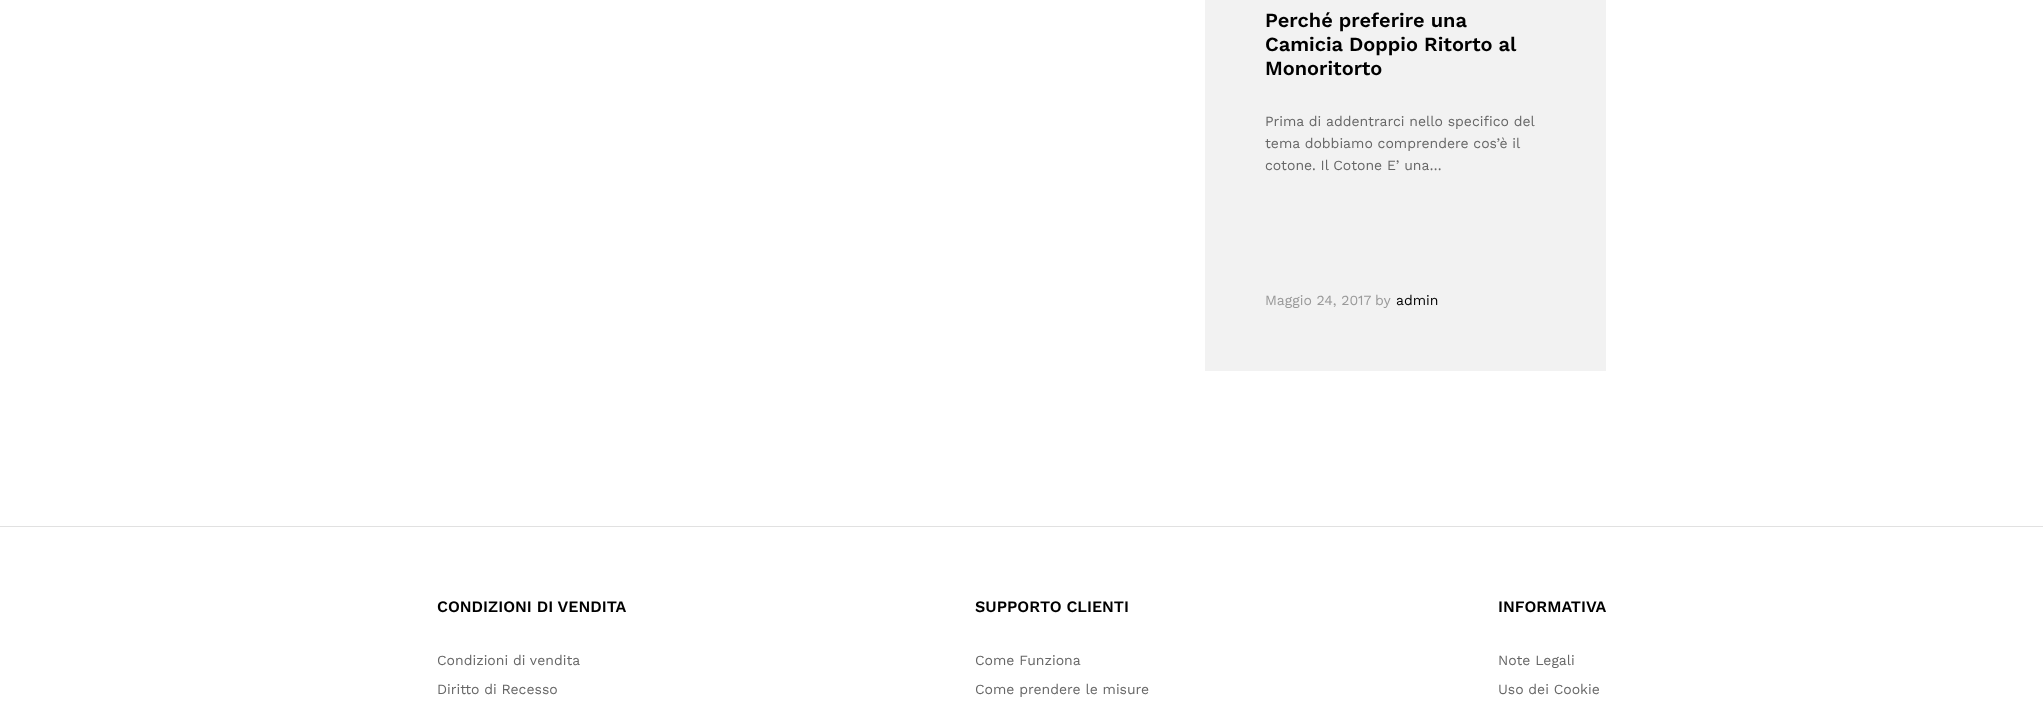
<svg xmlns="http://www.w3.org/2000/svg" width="2043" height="713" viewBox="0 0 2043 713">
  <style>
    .t1 { font: 600 20px Work Sans; fill: #000; }
    .t2 { font: 14px Work Sans; fill: #666; }
    .t3 { font: 14px Work Sans; fill: #999; }
    .t4 { font: 14px Work Sans; fill: #000; }
    .t5 { font: 600 16px Work Sans; fill: #000; }
  </style>
  <rect width="100%" height="100%" fill="#fff"/>
  <rect x="1205" y="0" width="401" height="371" fill="#f2f2f2"/>
  <text x="1265" y="27" class="t1">Perché preferire una</text>
  <text x="1265" y="51" class="t1">Camicia Doppio Ritorto al</text>
  <text x="1265" y="75" class="t1">Monoritorto</text>
  <text x="1265" y="126" class="t2">Prima di addentrarci nello specifico del</text>
  <text x="1265" y="148" class="t2">tema dobbiamo comprendere cos’è il</text>
  <text x="1265" y="170" class="t2">cotone. Il Cotone E’ una…</text>
  <text x="1265" y="305" class="t3">Maggio 24, 2017</text>
  <text x="1375" y="305" class="t3">by</text>
  <text x="1396" y="305" class="t4">admin</text>
  <rect x="0" y="526" width="2043" height="1" fill="#e1e1e1"/>
  <text x="437" y="612" class="t5">CONDIZIONI DI VENDITA</text>
  <text x="437" y="665" class="t2">Condizioni di vendita</text>
  <text x="437" y="694" class="t2">Diritto di Recesso</text>
  <text x="975" y="612" class="t5">SUPPORTO CLIENTI</text>
  <text x="975" y="665" class="t2">Come Funziona</text>
  <text x="975" y="694" class="t2">Come prendere le misure</text>
  <text x="1498" y="612" class="t5">INFORMATIVA</text>
  <text x="1498" y="665" class="t2">Note Legali</text>
  <text x="1498" y="694" class="t2">Uso dei Cookie</text>
</svg>
